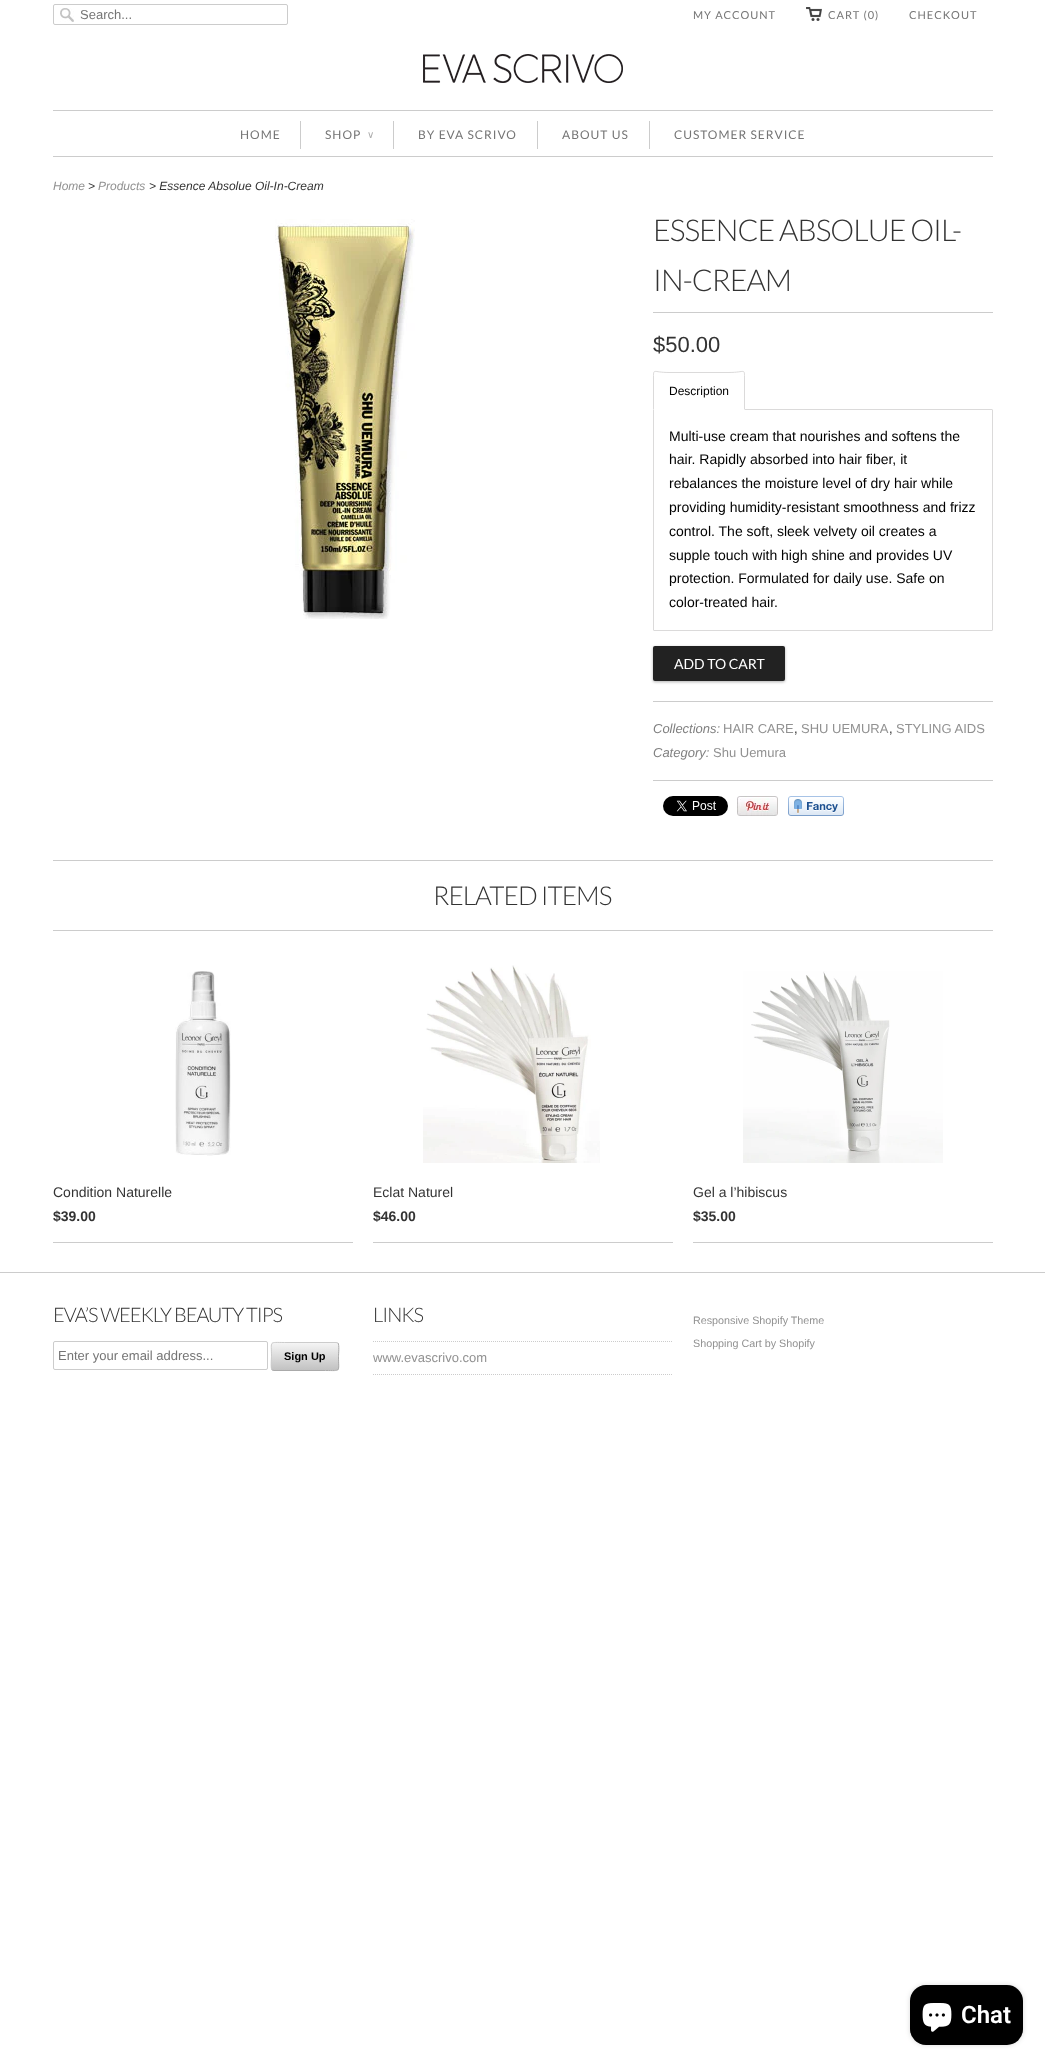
<svg xmlns="http://www.w3.org/2000/svg" width="1045" height="2066" viewBox="0 0 1045 2066">
  <style>
    .t1 { font: 13px Liberation Sans; fill: #757575; }
    .t2 { font: 11px Lato; letter-spacing: 1px; fill: #757575; }
    .t3 { font: 12px Lato; letter-spacing: 1px; fill: #757575; }
    .t4 { font: 10px DejaVu Sans; letter-spacing: 1px; fill: #adadad; }
    .t5 { font: italic 12px Liberation Sans; fill: #919191; }
    .t6 { font: italic 12px Liberation Sans; fill: #333; }
    .t7 { font: 300 30px Lato; letter-spacing: -1px; fill: #333; }
    .t8 { font: 22px Liberation Sans; fill: #333; }
    .t9 { font: 12px Liberation Sans; fill: #000; }
    .t10 { font: 14px Liberation Sans; fill: #000; }
    .t11 { font: 14px Lato; fill: #fff; }
    .t12 { font: italic 13px Liberation Sans; fill: #808080; }
    .t13 { font: 13px Liberation Sans; fill: #919191; }
    .t14 { font: 13px Liberation Sans; fill: #333; }
    .t15 { font: 300 26px Lato; letter-spacing: -1px; fill: #333; }
    .t16 { font: 14px Liberation Sans; fill: #333; }
    .t17 { font: bold 14px Liberation Sans; fill: #333; }
    .t18 { font: 300 20px Lato; letter-spacing: -1px; fill: #333; }
    .t19 { font: bold 11px Liberation Sans; fill: #000; }
    .t20 { font: 10.75px Liberation Sans; fill: #919191; }
    .t21 { font: 600 24px Roboto; fill: #fff; }
  </style>
  <defs>
    <clipPath id="clip1"><rect x="271" y="1342" width="68" height="29" rx="3"/></clipPath>
    <linearGradient id="g1" gradientUnits="userSpaceOnUse" x1="305" y1="1343" x2="305" y2="1370"><stop offset="0" stop-color="#fff" stop-opacity="0.2"/><stop offset="1" stop-color="#000" stop-opacity="0.2"/></linearGradient>
  </defs>
  <rect width="100%" height="100%" fill="#fff"/>
  <image x="60" y="8" width="14" height="14" href="images/1.png"/>
  <rect x="53.5" y="4.5" width="234" height="20" rx="1.5" fill="none" stroke="#ccc"/>
  <text x="80" y="19" class="t1">Search...</text>
  <text x="693" y="19" class="t2">MY ACCOUNT</text>
  <image x="806" y="7" width="16" height="14" href="images/2.png"/>
  <text x="828" y="19" class="t2">CART (0)</text>
  <text x="909" y="19" class="t2">CHECKOUT</text>
  <image x="423" y="54" width="200" height="29" href="images/3.png"/>
  <rect x="53" y="110" width="940" height="1" fill="#ccc"/>
  <rect x="53" y="156" width="940" height="1" fill="#ccc"/>
  <rect x="300" y="121" width="1" height="28" fill="#ccc"/>
  <text x="240" y="139" class="t3">HOME</text>
  <rect x="393" y="121" width="1" height="28" fill="#ccc"/>
  <text x="325" y="139" class="t3">SHOP</text>
  <text x="367" y="138" class="t4">∨</text>
  <rect x="537" y="121" width="1" height="28" fill="#ccc"/>
  <text x="418" y="139" class="t3">BY EVA SCRIVO</text>
  <rect x="649" y="121" width="1" height="28" fill="#ccc"/>
  <text x="562" y="139" class="t3">ABOUT US</text>
  <text x="674" y="139" class="t3">CUSTOMER SERVICE</text>
  <text x="53" y="190" class="t5">Home</text>
  <text x="88" y="190" class="t6">&gt;</text>
  <text x="98" y="190" class="t5">Products</text>
  <text x="149" y="190" class="t6">&gt; Essence Absolue Oil-In-Cream</text>
  <image x="275" y="219" width="140" height="400" href="images/4.png"/>
  <rect x="653" y="312" width="340" height="1" fill="#ccc"/>
  <text x="653" y="241" class="t7">ESSENCE ABSOLUE OIL-</text>
  <text x="653" y="291" class="t7">IN-CREAM</text>
  <text x="653" y="352" class="t8">$50.00</text>
  <rect x="653.5" y="409.5" width="339" height="221" rx="0.5" fill="none" stroke="#dbdada"/>
  <rect x="653" y="372" width="92" height="38" rx="1" fill="#fff"/>
  <rect x="744" y="409" width="1" height="1" fill="#fff"/>
  <path d="M653.5 409.5V379C653.5 367.5 652.5 372.5 669 372.5H729C745.5 372.5 744.5 367.5 744.5 379V409.5" fill="none" stroke="#dbdada"/>
  <text x="669" y="395" class="t9">Description</text>
  <text x="669" y="441" class="t10">Multi-use cream that nourishes and softens the</text>
  <text x="669" y="464" class="t10">hair. Rapidly absorbed into hair fiber, it</text>
  <text x="669" y="488" class="t10">rebalances the moisture level of dry hair while</text>
  <text x="669" y="512" class="t10">providing humidity-resistant smoothness and frizz</text>
  <text x="669" y="536" class="t10">control. The soft, sleek velvety oil creates a</text>
  <text x="669" y="560" class="t10">supple touch with high shine and provides UV</text>
  <text x="669" y="583" class="t10">protection. Formulated for daily use. Safe on</text>
  <text x="669" y="607" class="t10">color-treated hair.</text>
  <rect x="653" y="647" width="132" height="35" rx="2" fill="#0000004d" filter="blur(1.5px)"/>
  <rect x="653" y="646" width="132" height="35" rx="2" fill="#222"/>
  <text x="674" y="669" class="t11">ADD TO CART</text>
  <rect x="653" y="701" width="340" height="1" fill="#ccc"/>
  <text x="653" y="733" class="t12">Collections:</text>
  <text x="723" y="733" class="t13">HAIR CARE</text>
  <text x="794" y="733" class="t14">,</text>
  <text x="801" y="733" class="t13">SHU UEMURA</text>
  <text x="889" y="733" class="t14">,</text>
  <text x="896" y="733" class="t13">STYLING AIDS</text>
  <text x="653" y="757" class="t12">Category:</text>
  <text x="713" y="757" class="t13">Shu Uemura</text>
  <rect x="653" y="780" width="340" height="1" fill="#ccc"/>
  <image x="663" y="796" width="65" height="20" href="images/5.png"/>
  <image x="737" y="796" width="41" height="20" href="images/6.png"/>
  <image x="788" y="796" width="56" height="20" href="images/7.png"/>
  <rect x="53" y="860" width="940" height="1" fill="#ccc"/>
  <rect x="53" y="930" width="940" height="1" fill="#ccc"/>
  <text x="433" y="905" class="t15">RELATED ITEMS</text>
  <rect x="53" y="1242" width="300" height="1" fill="#ccc"/>
  <image x="175" y="971" width="56" height="185" href="images/8.png"/>
  <text x="53" y="1197" class="t16">Condition Naturelle</text>
  <text x="53" y="1221" class="t17">$39.00</text>
  <rect x="373" y="1242" width="300" height="1" fill="#ccc"/>
  <image x="423" y="965" width="177" height="198" href="images/9.png"/>
  <text x="373" y="1197" class="t16">Eclat Naturel</text>
  <text x="373" y="1221" class="t17">$46.00</text>
  <rect x="693" y="1242" width="300" height="1" fill="#ccc"/>
  <image x="743" y="971" width="200" height="192" href="images/10.png"/>
  <text x="693" y="1197" class="t16">Gel a l’hibiscus</text>
  <text x="693" y="1221" class="t17">$35.00</text>
  <rect x="0" y="1272" width="1045" height="1" fill="#ccc"/>
  <text x="53" y="1322" class="t18">EVA’S WEEKLY BEAUTY TIPS</text>
  <rect x="53.5" y="1341.5" width="214" height="28" rx="1.5" fill="none" stroke="#ccc"/>
  <text x="58" y="1360" class="t1">Enter your email address...</text>
  <rect x="271" y="1342" width="68" height="29" rx="3" fill="#f2f2f2"/>
  <g clip-path="url(#clip1)">
    <rect x="271" y="1343" width="68" height="27" fill="url(#g1)"/>
  </g>
  <path d="M338 1343C339.5 1345 338.5 1354 338.5 1356.5C338.5 1372.5 341.5 1370.5 325.5 1370.5H274L272 1370" fill="none" stroke="#aaa"/>
  <path d="M272 1370C270.5 1368 271.5 1359 271.5 1356.5C271.5 1340.5 268.5 1342.5 284.5 1342.5H336L338 1343" fill="none" stroke="#ccc"/>
  <text x="284" y="1360" class="t19">Sign Up</text>
  <text x="373" y="1322" class="t18">LINKS</text>
  <path d="M373 1341.5H673" fill="none" stroke="#ccc" stroke-dasharray="1 1"/>
  <path d="M373 1374.5H673" fill="none" stroke="#ccc" stroke-dasharray="1 1"/>
  <text x="373" y="1362" class="t13">www.evascrivo.com</text>
  <text x="693" y="1324" class="t20">Responsive Shopify Theme</text>
  <text x="693" y="1347" class="t20">Shopping Cart by Shopify</text>
  <rect x="910" y="1985" width="113" height="60" rx="16" fill="#00000026" filter="blur(2.5px)"/>
  <rect x="910" y="1985" width="113" height="60" rx="16" fill="#000"/>
  <image x="922" y="2003" width="30" height="29" href="images/11.png"/>
  <text x="961" y="2023" class="t21">Chat</text>
</svg>
